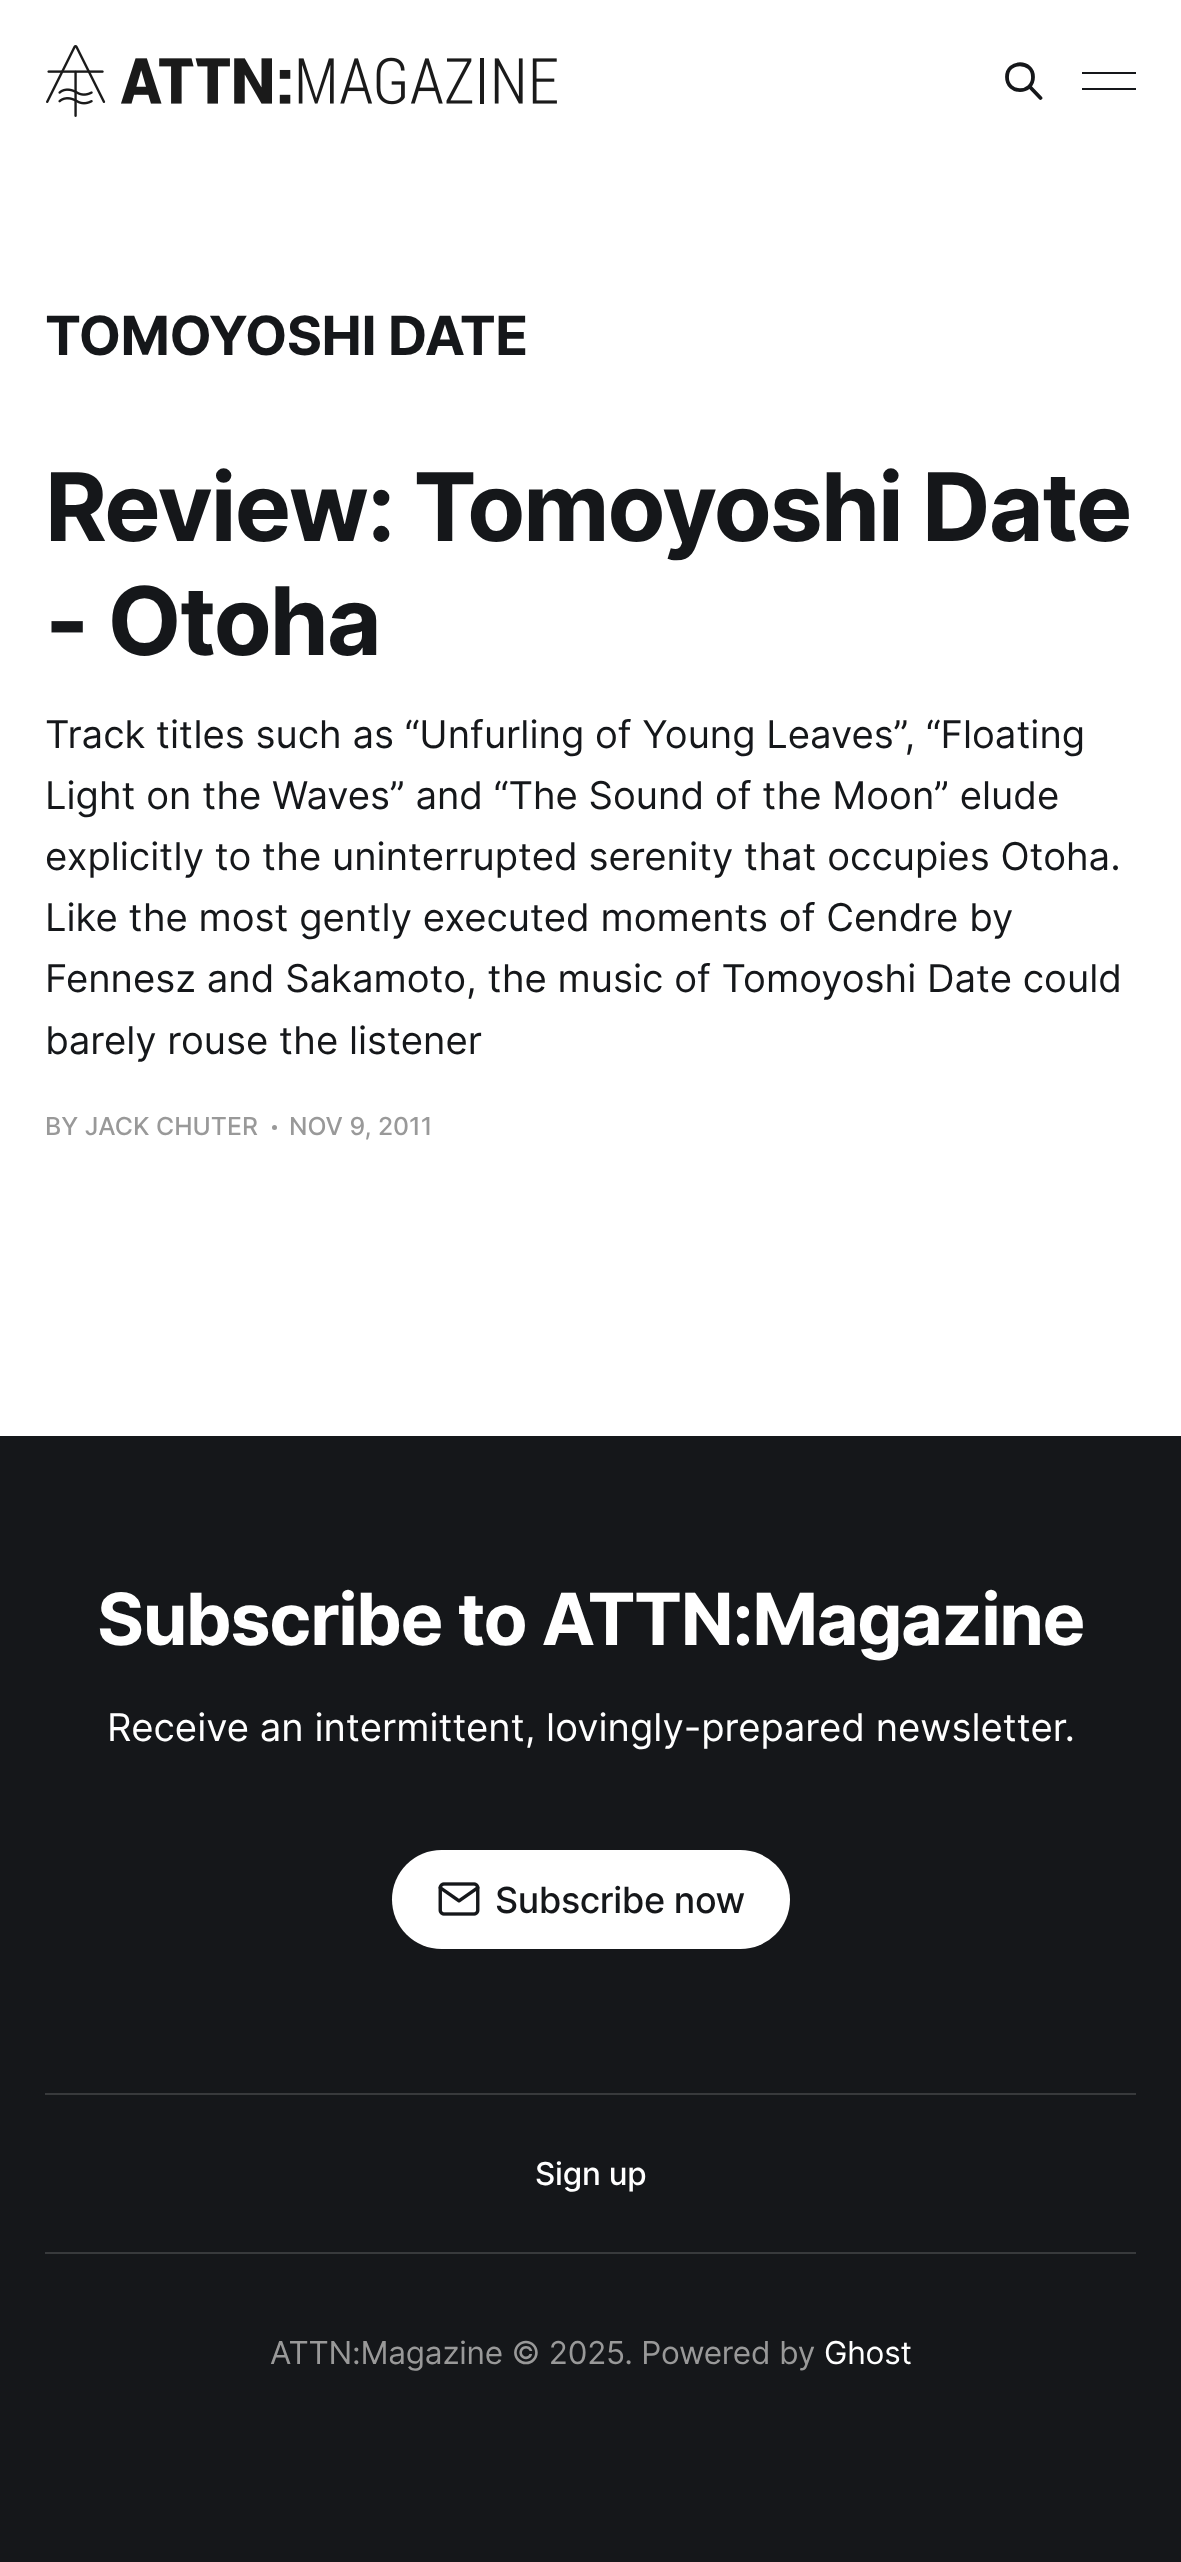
<svg xmlns="http://www.w3.org/2000/svg" width="1181" height="2562" viewBox="0 0 1181 2562">
  <style>
    .t1 { font: bold 54px Inter; letter-spacing: -0.5px; fill: #15171a; }
    .t2 { font: bold 94.5px Inter; letter-spacing: -1.9px; fill: #15171a; }
    .t3 { font: 38.25px Inter; fill: #15171a; }
    .t4 { font: 500 24.75px Inter; fill: #999; }
    .t5 { font: bold 72px Inter; letter-spacing: -1.45px; fill: #fff; }
    .t6 { font: 38.25px Inter; fill: #fff; }
    .t7 { font: 500 36px Inter; letter-spacing: -0.4px; fill: #15171a; }
    .t8 { font: 500 31.5px Inter; letter-spacing: -0.2px; fill: #fff; }
    .t9 { font: 31.5px Inter; letter-spacing: -0.2px; fill: #999; }
    .t10 { font: 31.5px Inter; letter-spacing: -0.2px; fill: #fff; }
  </style>
  <rect width="100%" height="100%" fill="#fff"/>
  <image x="46" y="45" width="511" height="72" href="images/1.png"/>
  <path d="M1040.5 98L1029.5 86.5M1033 77C1033 94.5 1007 94.5 1007 77C1007 60 1033 60 1033 77Z" fill="none" stroke="#15171a" stroke-width="3.8" stroke-linecap="round" stroke-linejoin="round"/>
  <rect x="1082" y="72" width="54" height="2" fill="#15171a"/>
  <rect x="1082" y="88" width="54" height="2" fill="#15171a"/>
  <text x="45" y="355" class="t1">TOMOYOSHI DATE</text>
  <text x="45" y="541" class="t2">Review: Tomoyoshi Date</text>
  <text x="45" y="655" class="t2">- Otoha</text>
  <text x="45" y="748" class="t3">Track titles such as “Unfurling of Young Leaves”, “Floating</text>
  <text x="45" y="809" class="t3">Light on the Waves” and “The Sound of the Moon” elude</text>
  <text x="45" y="870" class="t3">explicitly to the uninterrupted serenity that occupies Otoha.</text>
  <text x="45" y="931" class="t3">Like the most gently executed moments of Cendre by</text>
  <text x="45" y="992" class="t3">Fennesz and Sakamoto, the music of Tomoyoshi Date could</text>
  <text x="45" y="1054" class="t3">barely rouse the listener</text>
  <text x="45" y="1135" class="t4">BY JACK CHUTER</text>
  <circle cx="274.5" cy="1127.5" r="2.5" fill="#999"/>
  <text x="289" y="1135" class="t4">NOV 9, 2011</text>
  <rect x="0" y="1436" width="1181" height="1126" fill="#15171a"/>
  <text x="97" y="1645" class="t5">Subscribe to ATTN:Magazine</text>
  <text x="107" y="1741" class="t6">Receive an intermittent, lovingly-prepared newsletter.</text>
  <rect x="392" y="1850" width="398" height="99" rx="49.5" fill="#fff"/>
  <image x="438" y="1882" width="42" height="34" href="images/2.png"/>
  <text x="495" y="1913" class="t7">Subscribe now</text>
  <rect x="45" y="2093" width="1091" height="2" fill="#383a3c"/>
  <rect x="45" y="2252" width="1091" height="2" fill="#383a3c"/>
  <text x="535" y="2185" class="t8">Sign up</text>
  <text x="270" y="2364" class="t9">ATTN:Magazine © 2025. Powered by</text>
  <text x="824" y="2364" class="t10">Ghost</text>
</svg>
